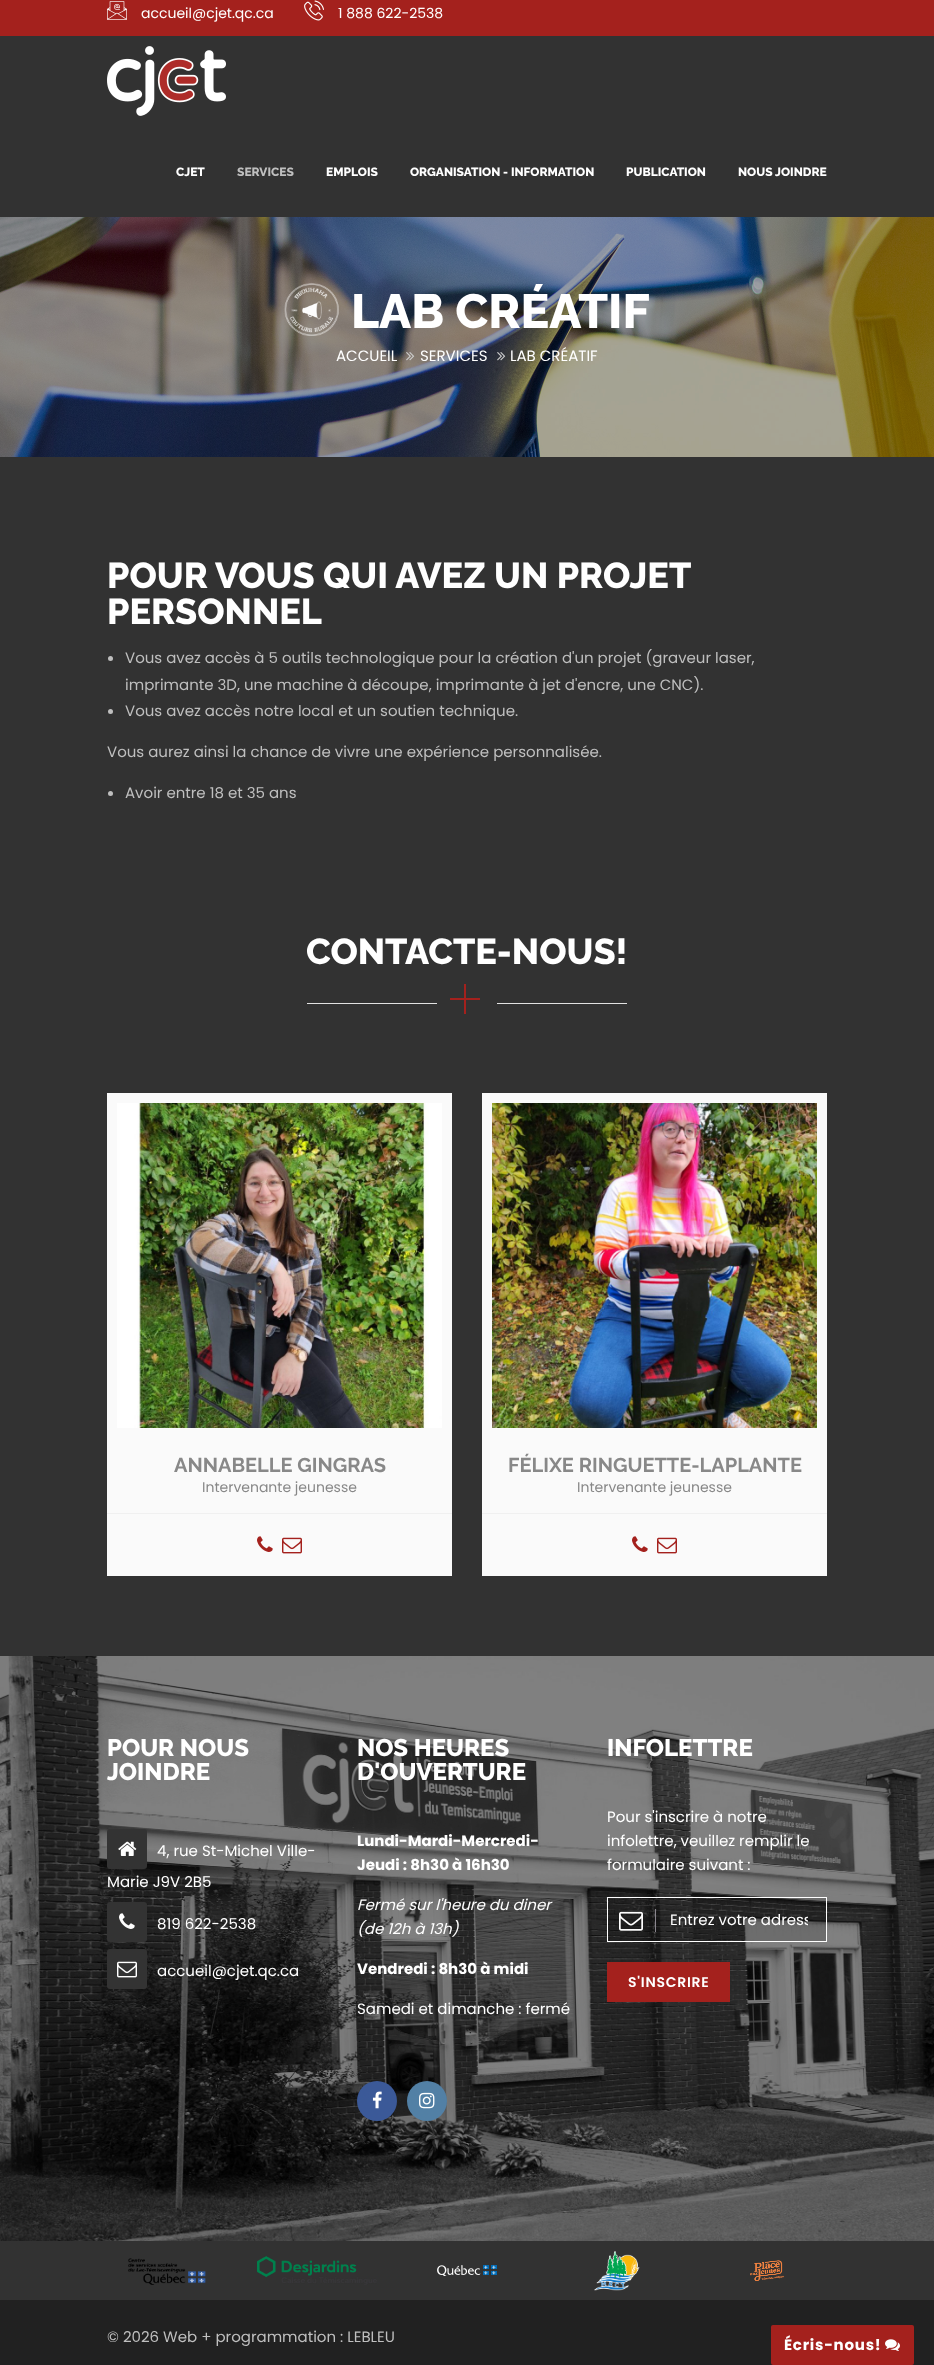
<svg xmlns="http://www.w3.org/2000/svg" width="934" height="2365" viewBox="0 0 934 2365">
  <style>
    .t1 { font: 14px Poppins; fill: #fff; }
    .t2 { font: 800 12px Raleway; fill: #fff; }
    .t3 { font: 800 12px Raleway; fill: #bfbfbf; }
    .t4 { font: 800 48px Raleway; fill: #fff; }
    .t5 { font: 15px Poppins; fill: #fff; }
    .t6 { font: 800 36px Raleway; fill: #fff; }
    .t7 { font: 15px Poppins; fill: #bfbfbf; }
    .t8 { font: bold 20px Raleway; fill: #888; }
    .t9 { font: 14px Poppins; fill: #888; }
    .t10 { font: 800 24px Raleway; fill: #fff; }
    .t11 { font: bold 15px Poppins; fill: #fff; }
    .t12 { font: italic 15px Poppins; fill: #fff; }
    .t13 { font: 600 14px Poppins; letter-spacing: 0.75px; fill: #fff; }
    .t14 { font: bold 15px Poppins; letter-spacing: 0.75px; fill: #fff; }
  </style>
  <defs>
    <clipPath id="clip1"><rect x="670" y="1908" width="138" height="23"/></clipPath>
  </defs>
  <rect width="100%" height="100%" fill="#323232"/>
  <rect x="0" y="0" width="934" height="36" fill="#a4211d"/>
  <image x="107" y="1" width="20" height="19" href="images/1.png"/>
  <text x="141" y="18" class="t1">accueil@cjet.qc.ca</text>
  <image x="304" y="0" width="20" height="21" href="images/2.png"/>
  <text x="338" y="18" class="t1">1 888 622-2538</text>
  <image x="107" y="46" width="119" height="70" href="images/3.png"/>
  <text x="176" y="176" class="t2">CJET</text>
  <text x="237" y="176" class="t3">SERVICES</text>
  <text x="326" y="176" class="t2">EMPLOIS</text>
  <text x="410" y="176" class="t2">ORGANISATION - INFORMATION</text>
  <text x="626" y="176" class="t2">PUBLICATION</text>
  <text x="738" y="176" class="t2">NOUS JOINDRE</text>
  <image x="0" y="217" width="934" height="240" href="images/4.png"/>
  <image x="284" y="283" width="55" height="53" href="images/5.png"/>
  <text x="351" y="328" class="t4">LAB CRÉATIF</text>
  <text x="336" y="361" class="t5">ACCUEIL</text>
  <image x="406" y="352" width="9" height="9" href="images/6.png"/>
  <text x="420" y="361" class="t5">SERVICES</text>
  <image x="497" y="352" width="9" height="9" href="images/7.png"/>
  <text x="510" y="361" class="t5">LAB CRÉATIF</text>
  <text x="107" y="588" class="t6">POUR VOUS QUI AVEZ UN PROJET</text>
  <text x="107" y="624" class="t6">PERSONNEL</text>
  <circle cx="110.5" cy="658.5" r="2.5" fill="#bfbfbf"/>
  <text x="125" y="663" class="t7">Vous avez accès à 5 outils technologique pour la création d'un projet (graveur laser,</text>
  <text x="125" y="690" class="t7">imprimante 3D, une machine à découpe, imprimante à jet d'encre, une CNC).</text>
  <circle cx="110.5" cy="711.5" r="2.5" fill="#bfbfbf"/>
  <text x="125" y="716" class="t7">Vous avez accès notre local et un soutien technique.</text>
  <text x="107" y="757" class="t7">Vous aurez ainsi la chance de vivre une expérience personnalisée.</text>
  <circle cx="110.5" cy="793.5" r="2.5" fill="#bfbfbf"/>
  <text x="125" y="798" class="t7">Avoir entre 18 et 35 ans</text>
  <text x="306" y="964" class="t6">CONTACTE-NOUS!</text>
  <rect x="307" y="1003" width="130" height="1" fill="#e2e2e2"/>
  <rect x="450" y="998" width="30" height="2" fill="#a4211d"/>
  <rect x="464" y="984" width="2" height="30" fill="#a4211d"/>
  <rect x="497" y="1003" width="130" height="1" fill="#e2e2e2"/>
  <rect x="107" y="1093" width="345" height="483" fill="#fafafa"/>
  <image x="117" y="1103" width="325" height="325" href="images/8.png"/>
  <text x="174" y="1472" class="t8">ANNABELLE GINGRAS</text>
  <text x="202" y="1492" class="t9">Intervenante jeunesse</text>
  <rect x="107" y="1513" width="345" height="1" fill="#f0f0f0"/>
  <image x="257" y="1536" width="16" height="16" href="images/9.png"/>
  <image x="282" y="1537" width="20" height="17" href="images/10.png"/>
  <rect x="482" y="1093" width="345" height="483" fill="#fafafa"/>
  <image x="492" y="1103" width="325" height="325" href="images/11.png"/>
  <text x="508" y="1472" class="t8">FÉLIXE RINGUETTE-LAPLANTE</text>
  <text x="577" y="1492" class="t9">Intervenante jeunesse</text>
  <rect x="482" y="1513" width="345" height="1" fill="#f0f0f0"/>
  <image x="632" y="1536" width="16" height="16" href="images/9.png"/>
  <image x="657" y="1537" width="20" height="17" href="images/10.png"/>
  <image x="0" y="1656" width="934" height="585" href="images/12.png"/>
  <text x="107" y="1756" class="t10">POUR NOUS</text>
  <text x="107" y="1780" class="t10">JOINDRE</text>
  <rect x="107" y="1829" width="40" height="40" rx="3" fill="#333"/>
  <image x="118" y="1841" width="19" height="15" href="images/13.png"/>
  <text x="157" y="1856" class="t5">4, rue St-Michel Ville-</text>
  <text x="107" y="1887" class="t5">Marie J9V 2B5</text>
  <rect x="107" y="1902" width="40" height="40" rx="3" fill="#333"/>
  <image x="119" y="1913" width="16" height="16" href="images/14.png"/>
  <text x="157" y="1929" class="t5">819 622-2538</text>
  <rect x="107" y="1949" width="40" height="40" rx="3" fill="#333"/>
  <image x="117" y="1961" width="20" height="17" href="images/15.png"/>
  <text x="157" y="1976" class="t5">accueil@cjet.qc.ca</text>
  <text x="357" y="1756" class="t10">NOS HEURES</text>
  <text x="357" y="1780" class="t10">D'OUVERTURE</text>
  <text x="357" y="1846" class="t11">Lundi-Mardi-Mercredi-</text>
  <text x="357" y="1870" class="t11">Jeudi : 8h30 à 16h30</text>
  <text x="357" y="1910" class="t12">Fermé sur l'heure du diner</text>
  <text x="357" y="1934" class="t12">(de 12h à 13h)</text>
  <text x="357" y="1974" class="t11">Vendredi : 8h30 à midi</text>
  <text x="357" y="2014" class="t5">Samedi et dimanche : fermé</text>
  <circle cx="377" cy="2101" r="20" fill="#3b5998"/>
  <image x="372" y="2091" width="10" height="18" href="images/16.png"/>
  <circle cx="427" cy="2101" r="20" fill="#5280a5"/>
  <image x="419" y="2092" width="16" height="17" href="images/17.png"/>
  <text x="607" y="1756" class="t10">INFOLETTRE</text>
  <text x="607" y="1822" class="t5">Pour s'inscrire à notre</text>
  <text x="607" y="1846" class="t5">infolettre, veuillez remplir le</text>
  <text x="607" y="1870" class="t5">formulaire suivant :</text>
  <rect x="607.5" y="1897.5" width="219" height="44" fill="#00000026" stroke="#fff"/>
  <image x="619" y="1911" width="24" height="20" href="images/18.png"/>
  <rect x="655" y="1909" width="1" height="23" fill="#8a868e"/>
  <g clip-path="url(#clip1)">
    <text x="670" y="1925" class="t5">Entrez votre adress</text>
  </g>
  <rect x="607.5" y="1962.5" width="122" height="39" fill="none" stroke="#a4211d"/>
  <rect x="608" y="1963" width="121" height="38" fill="#a4211d"/>
  <text x="628" y="1987" class="t13">S'INSCRIRE</text>
  <image x="128" y="2258" width="78" height="27" href="images/19.png"/>
  <image x="257" y="2256" width="120" height="29" href="images/20.png"/>
  <image x="437" y="2265" width="60" height="11" href="images/21.png"/>
  <image x="594" y="2251" width="46" height="40" href="images/22.png"/>
  <image x="750" y="2260" width="35" height="21" href="images/23.png"/>
  <rect x="0" y="2300" width="934" height="65" fill="#212121"/>
  <text x="107" y="2342" class="t7">© 2026 Web + programmation : LEBLEU</text>
  <rect x="771" y="2325" width="143" height="40" rx="2" fill="#a4211d"/>
  <text x="784" y="2350" class="t14">Écris-nous!</text>
  <image x="885" y="2339" width="15" height="12" href="images/24.png"/>
</svg>
